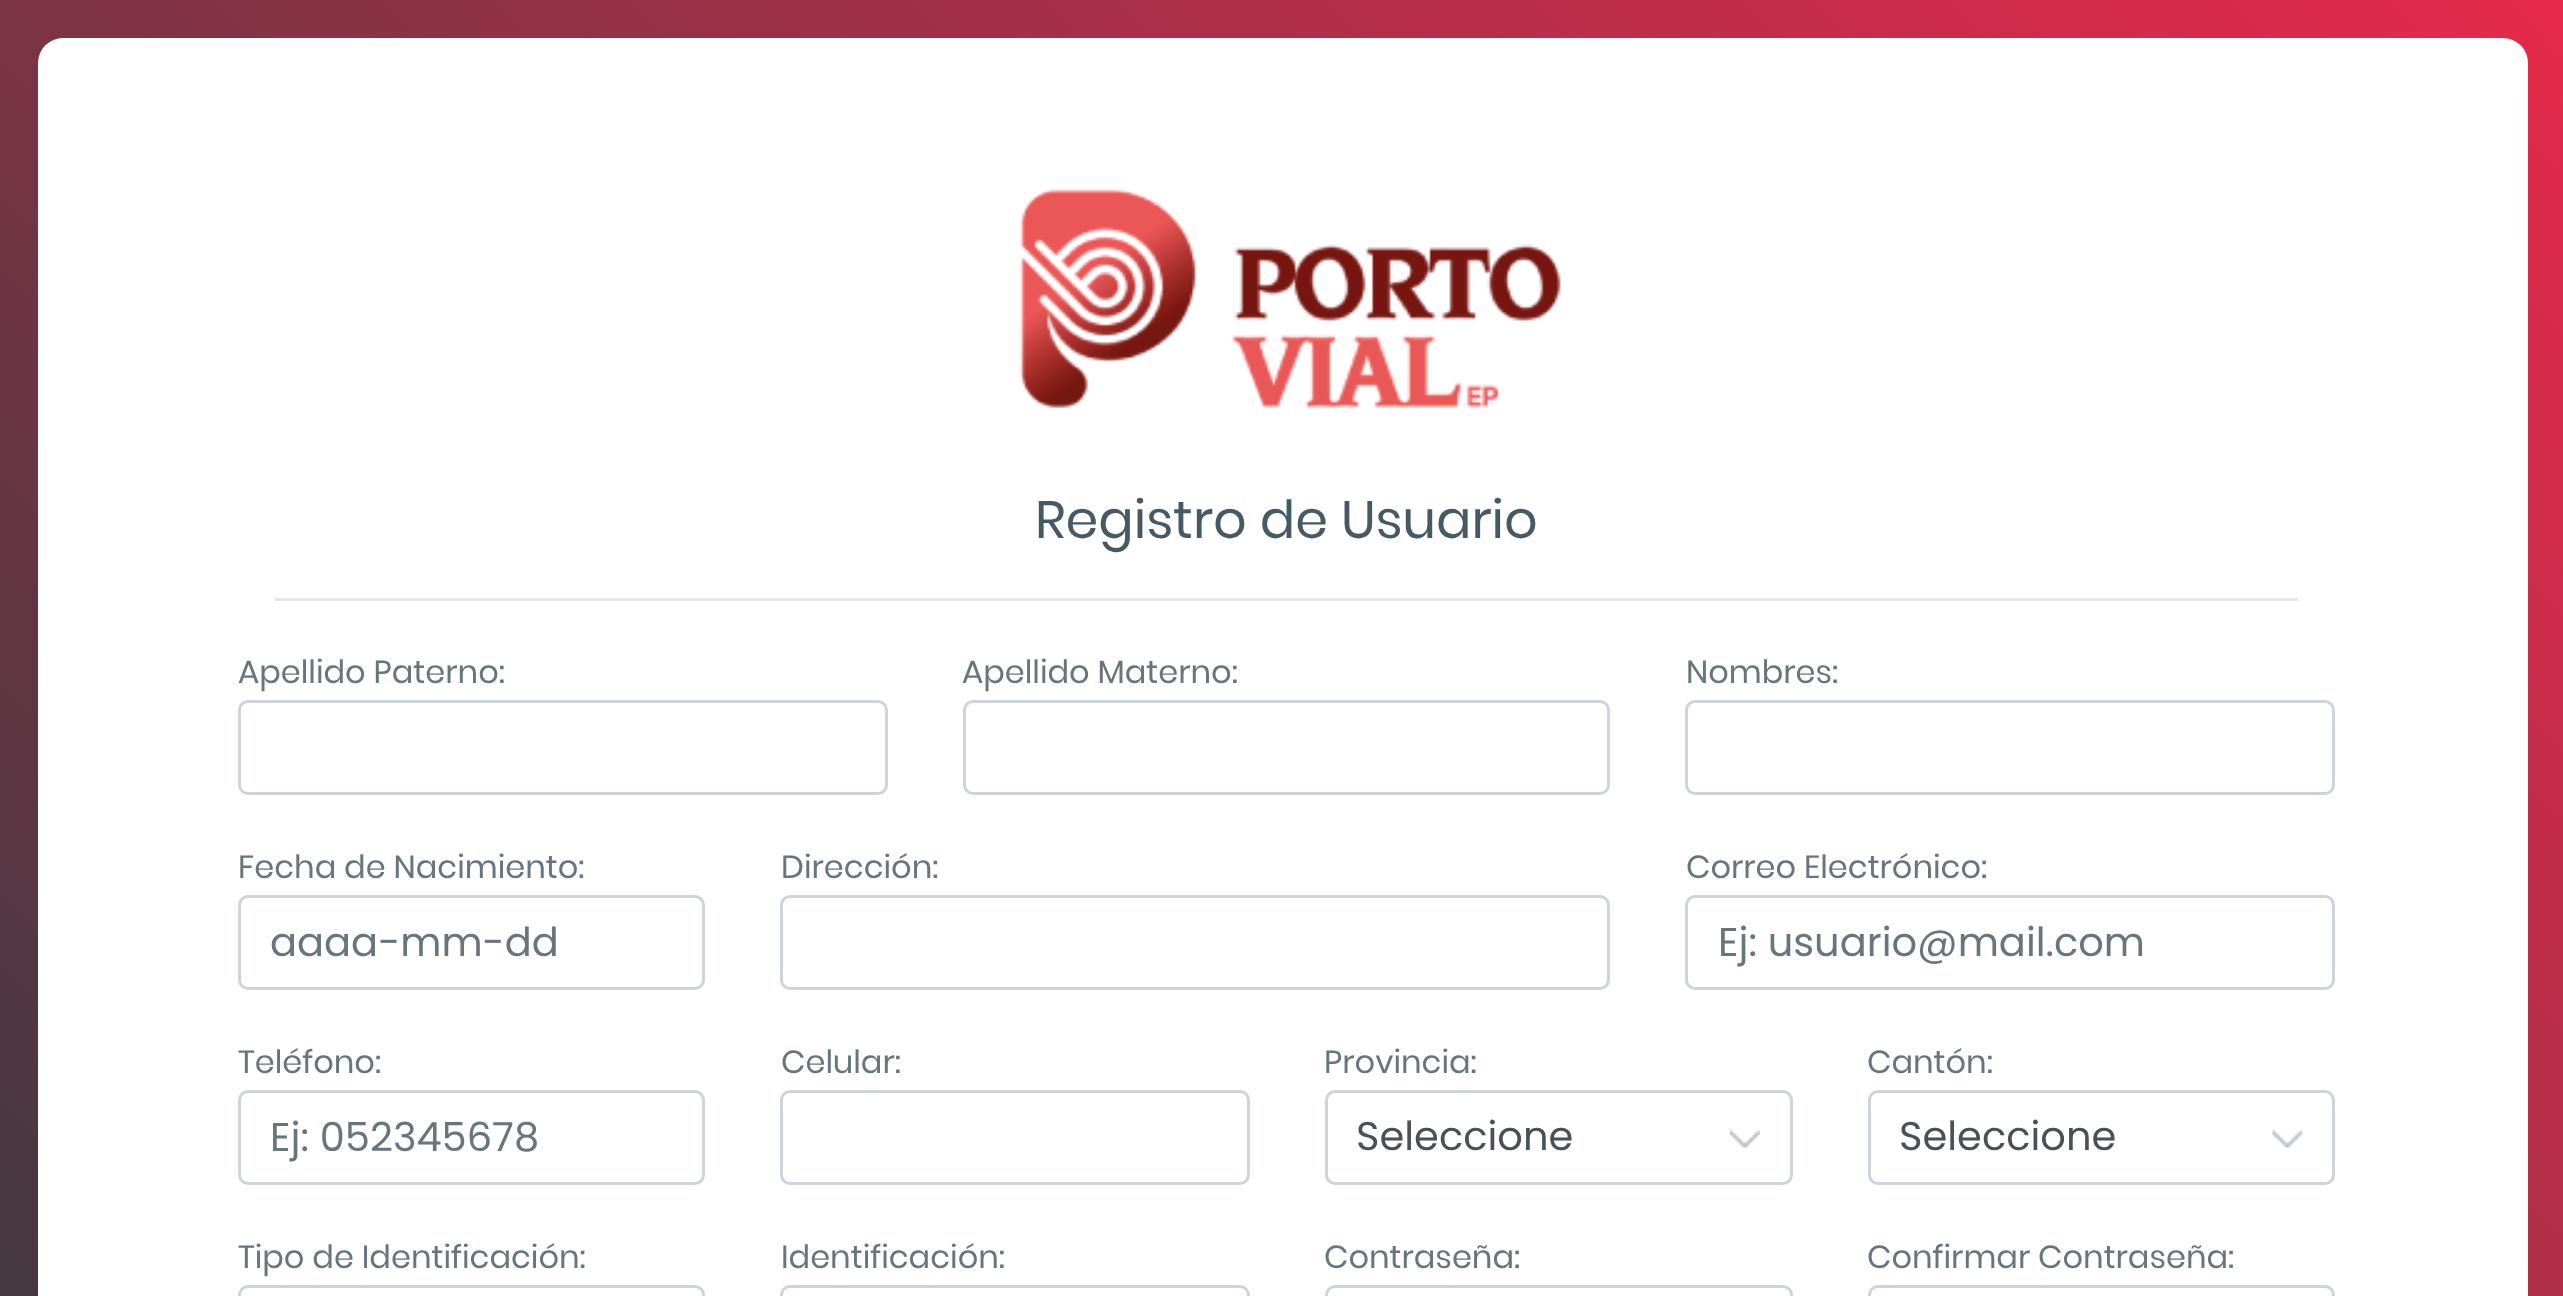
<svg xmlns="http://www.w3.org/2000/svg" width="2563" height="1296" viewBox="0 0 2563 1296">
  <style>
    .t1 { font: 52.5px Poppins; fill: #455a64; }
    .t2 { font: 32px Poppins; fill: #67757c; }
    .t3 { font: 40px 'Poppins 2'; fill: #67757c; }
    .t4 { font: 40px 'Poppins 2'; fill: #495057; }
  </style>
  <defs>
    <linearGradient id="g1" gradientUnits="userSpaceOnUse" x1="2348" y1="-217" x2="218" y2="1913"><stop offset="0" stop-color="#e6294b"/><stop offset="1" stop-color="#343a40"/></linearGradient>
  </defs>
  <rect width="100%" height="100%" fill="#fff"/>
  <rect x="0" y="0" width="2563" height="1296" fill="url(#g1)"/>
  <rect x="38" y="38" width="2490" height="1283" rx="25" fill="#fff"/>
  <image x="1019" y="189" width="542" height="219" href="images/1.png"/>
  <text x="1035" y="538" class="t1">Registro de Usuario</text>
  <rect x="275" y="598" width="2023" height="3" fill="#e6e6e6"/>
  <text x="238" y="683" class="t2">Apellido Paterno:</text>
  <rect x="239.5" y="701.5" width="647" height="92" rx="8.5" fill="none" stroke="#ced4da" stroke-width="3"/>
  <text x="962" y="683" class="t2">Apellido Materno:</text>
  <rect x="964.5" y="701.5" width="644" height="92" rx="8.5" fill="none" stroke="#ced4da" stroke-width="3"/>
  <text x="1686" y="683" class="t2">Nombres:</text>
  <rect x="1686.5" y="701.5" width="647" height="92" rx="8.5" fill="none" stroke="#ced4da" stroke-width="3"/>
  <text x="238" y="878" class="t2">Fecha de Nacimiento:</text>
  <rect x="239.5" y="896.5" width="464" height="92" rx="8.5" fill="none" stroke="#ced4da" stroke-width="3"/>
  <text x="270" y="956" class="t3">aaaa-mm-dd</text>
  <text x="781" y="878" class="t2">Dirección:</text>
  <rect x="781.5" y="896.5" width="827" height="92" rx="8.5" fill="none" stroke="#ced4da" stroke-width="3"/>
  <text x="1686" y="878" class="t2">Correo Electrónico:</text>
  <rect x="1686.5" y="896.5" width="647" height="92" rx="8.5" fill="none" stroke="#ced4da" stroke-width="3"/>
  <text x="1718" y="956" class="t3">Ej: usuario@mail.com</text>
  <text x="238" y="1073" class="t2">Teléfono:</text>
  <rect x="239.5" y="1091.5" width="464" height="92" rx="8.5" fill="none" stroke="#ced4da" stroke-width="3"/>
  <text x="270" y="1151" class="t3">Ej: 052345678</text>
  <text x="781" y="1073" class="t2">Celular:</text>
  <rect x="781.5" y="1091.5" width="467" height="92" rx="8.5" fill="none" stroke="#ced4da" stroke-width="3"/>
  <text x="1324" y="1073" class="t2">Provincia:</text>
  <image x="1730" y="1130" width="30" height="18" href="images/2.png"/>
  <rect x="1326.5" y="1091.5" width="465" height="92" rx="8.5" fill="none" stroke="#ced4da" stroke-width="3"/>
  <text x="1356" y="1150" class="t4">Seleccione</text>
  <text x="1867" y="1073" class="t2">Cantón:</text>
  <image x="2272" y="1130" width="31" height="18" href="images/3.png"/>
  <rect x="1869.5" y="1091.5" width="464" height="92" rx="8.5" fill="none" stroke="#ced4da" stroke-width="3"/>
  <text x="1899" y="1150" class="t4">Seleccione</text>
  <text x="238" y="1268" class="t2">Tipo de Identificación:</text>
  <rect x="239.5" y="1286.5" width="464" height="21" rx="8.5" fill="none" stroke="#ced4da" stroke-width="3"/>
  <text x="781" y="1268" class="t2">Identificación:</text>
  <rect x="781.5" y="1286.5" width="467" height="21" rx="8.5" fill="none" stroke="#ced4da" stroke-width="3"/>
  <text x="1324" y="1268" class="t2">Contraseña:</text>
  <rect x="1326.5" y="1286.5" width="465" height="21" rx="8.5" fill="none" stroke="#ced4da" stroke-width="3"/>
  <text x="1867" y="1268" class="t2">Confirmar Contraseña:</text>
  <rect x="1869.5" y="1286.5" width="464" height="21" rx="8.5" fill="none" stroke="#ced4da" stroke-width="3"/>
</svg>
